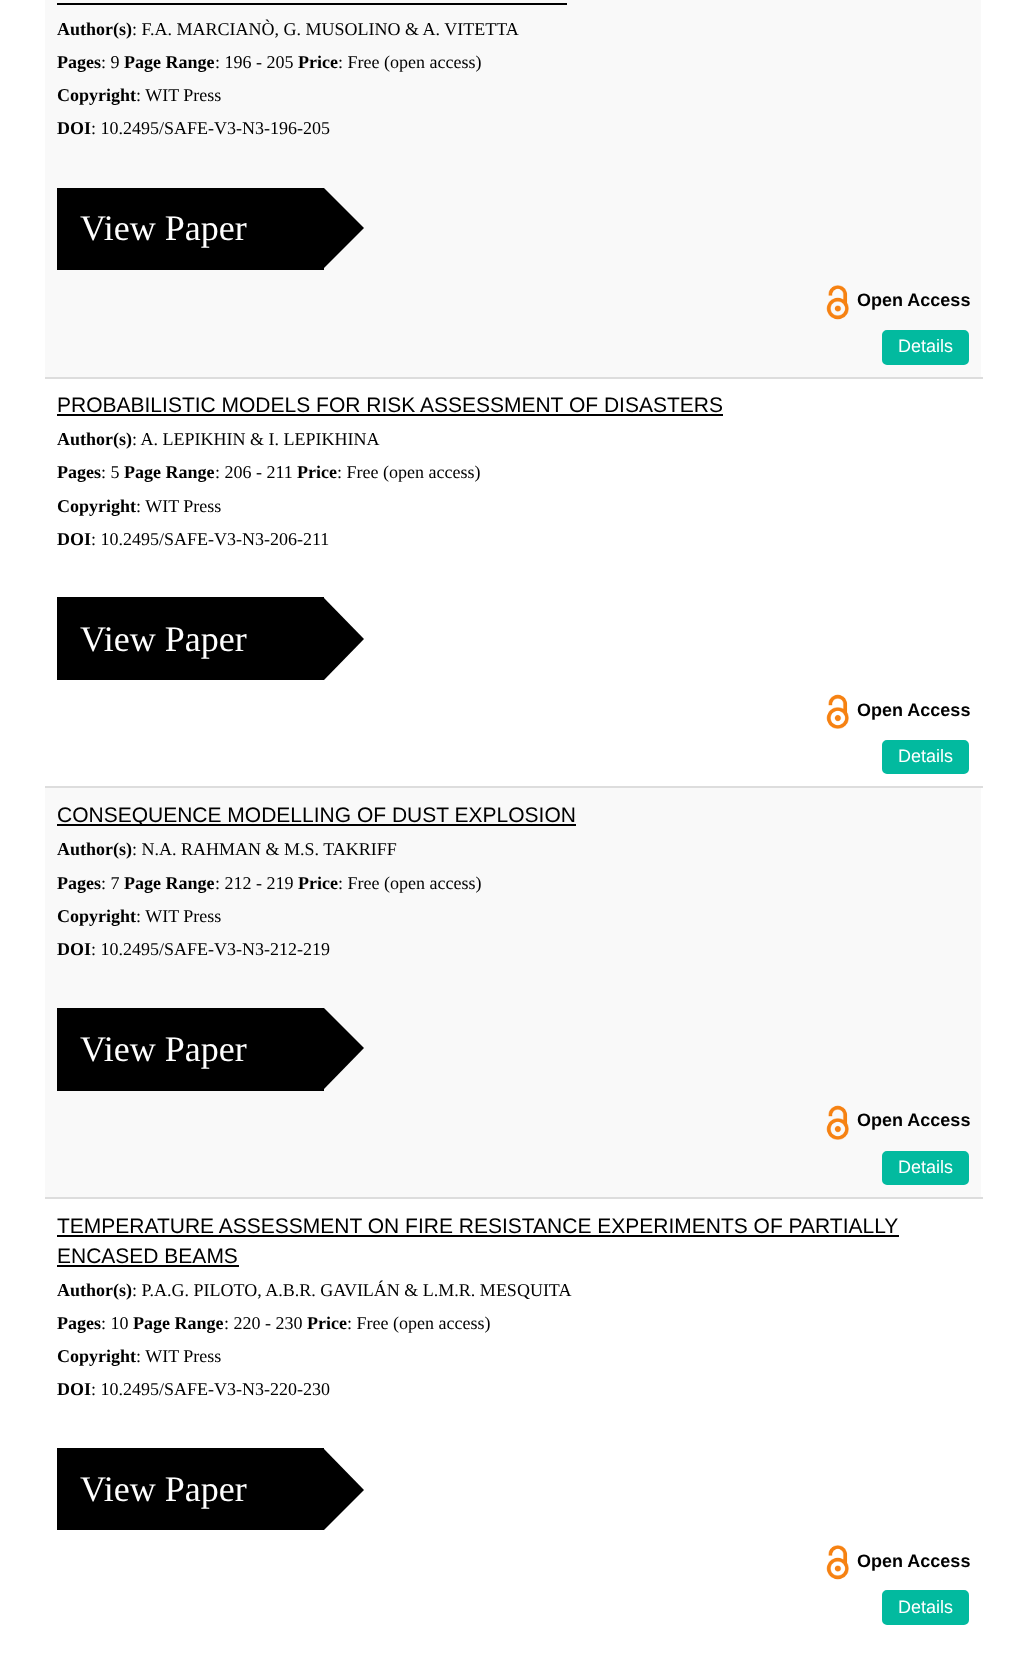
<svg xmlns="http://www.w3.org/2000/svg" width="1026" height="1658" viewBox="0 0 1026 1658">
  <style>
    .t1 { font: bold 18px Liberation Serif; fill: #000; }
    .t2 { font: 18px Liberation Serif; fill: #000; }
    .t3 { font: 36px Liberation Serif; fill: #fff; }
    .t4 { font: bold 18px Liberation Sans; fill: #000; }
    .t5 { font: 18px Liberation Sans; fill: #fff; }
    .t6 { font: 21px Liberation Sans; fill: #000; }
  </style>
  <rect width="100%" height="100%" fill="#fff"/>
  <rect x="45" y="0" width="936" height="377" fill="#f9f9f9"/>
  <rect x="57" y="3" width="510" height="2" fill="#000"/>
  <text x="57" y="35" class="t1">Author(s)</text>
  <text x="132" y="35" class="t2">: F.A. MARCIANÒ, G. MUSOLINO &amp; A. VITETTA</text>
  <text x="57" y="68" class="t1">Pages</text>
  <text x="101" y="68" class="t2">: 9</text>
  <text x="124" y="68" class="t1">Page Range</text>
  <text x="215" y="68" class="t2">: 196 - 205</text>
  <text x="298" y="68" class="t1">Price</text>
  <text x="338" y="68" class="t2">: Free (open access)</text>
  <text x="57" y="101" class="t1">Copyright</text>
  <text x="136" y="101" class="t2">: WIT Press</text>
  <text x="57" y="134" class="t1">DOI</text>
  <text x="91" y="134" class="t2">: 10.2495/SAFE-V3-N3-196-205</text>
  <rect x="57" y="188" width="267" height="82" fill="#000"/>
  <text x="80" y="240" class="t3">View Paper</text>
  <path d="M324 268V188L364 228Z" fill="#000"/>
  <image x="826" y="285" width="23" height="35" href="images/1.png"/>
  <text x="857" y="306" class="t4">Open Access</text>
  <rect x="883" y="331" width="85" height="33" rx="4" fill="#02ba9f" stroke="#02ba9f" stroke-width="2"/>
  <text x="898" y="352" class="t5">Details</text>
  <rect x="45" y="377" width="938" height="2" fill="#ddd"/>
  <text x="57" y="412" class="t6">PROBABILISTIC MODELS FOR RISK ASSESSMENT OF DISASTERS</text>
  <rect x="57" y="414" width="666" height="2" fill="#000"/>
  <text x="57" y="445" class="t1">Author(s)</text>
  <text x="132" y="445" class="t2">: A. LEPIKHIN &amp; I. LEPIKHINA</text>
  <text x="57" y="478" class="t1">Pages</text>
  <text x="101" y="478" class="t2">: 5</text>
  <text x="124" y="478" class="t1">Page Range</text>
  <text x="215" y="478" class="t2">: 206 - 211</text>
  <text x="297" y="478" class="t1">Price</text>
  <text x="337" y="478" class="t2">: Free (open access)</text>
  <text x="57" y="512" class="t1">Copyright</text>
  <text x="136" y="512" class="t2">: WIT Press</text>
  <text x="57" y="545" class="t1">DOI</text>
  <text x="91" y="545" class="t2">: 10.2495/SAFE-V3-N3-206-211</text>
  <rect x="57" y="597" width="267" height="83" fill="#000"/>
  <text x="80" y="651" class="t3">View Paper</text>
  <path d="M324 680V598L364 639Z" fill="#000"/>
  <image x="826" y="694" width="23" height="35" href="images/2.png"/>
  <text x="857" y="716" class="t4">Open Access</text>
  <rect x="883" y="741" width="85" height="32" rx="4" fill="#02ba9f" stroke="#02ba9f" stroke-width="2"/>
  <text x="898" y="762" class="t5">Details</text>
  <rect x="45" y="788" width="936" height="409" fill="#f9f9f9"/>
  <rect x="45" y="786" width="938" height="2" fill="#ddd"/>
  <rect x="57" y="824" width="519" height="2" fill="#000"/>
  <text x="57" y="822" class="t6">CONSEQUENCE MODELLING OF DUST EXPLOSION</text>
  <text x="57" y="855" class="t1">Author(s)</text>
  <text x="132" y="855" class="t2">: N.A. RAHMAN &amp; M.S. TAKRIFF</text>
  <text x="57" y="889" class="t1">Pages</text>
  <text x="101" y="889" class="t2">: 7</text>
  <text x="124" y="889" class="t1">Page Range</text>
  <text x="215" y="889" class="t2">: 212 - 219</text>
  <text x="298" y="889" class="t1">Price</text>
  <text x="338" y="889" class="t2">: Free (open access)</text>
  <text x="57" y="922" class="t1">Copyright</text>
  <text x="136" y="922" class="t2">: WIT Press</text>
  <text x="57" y="955" class="t1">DOI</text>
  <text x="91" y="955" class="t2">: 10.2495/SAFE-V3-N3-212-219</text>
  <rect x="57" y="1008" width="267" height="83" fill="#000"/>
  <text x="80" y="1061" class="t3">View Paper</text>
  <path d="M324 1089V1008L364 1048Z" fill="#000"/>
  <image x="826" y="1105" width="23" height="35" href="images/3.png"/>
  <text x="857" y="1126" class="t4">Open Access</text>
  <rect x="883" y="1152" width="85" height="32" rx="4" fill="#02ba9f" stroke="#02ba9f" stroke-width="2"/>
  <text x="898" y="1173" class="t5">Details</text>
  <rect x="45" y="1197" width="938" height="2" fill="#ddd"/>
  <text x="57" y="1233" class="t6">TEMPERATURE ASSESSMENT ON FIRE RESISTANCE EXPERIMENTS OF PARTIALLY</text>
  <rect x="57" y="1235" width="842" height="2" fill="#000"/>
  <text x="57" y="1263" class="t6">ENCASED BEAMS</text>
  <rect x="57" y="1265" width="182" height="2" fill="#000"/>
  <text x="57" y="1296" class="t1">Author(s)</text>
  <text x="132" y="1296" class="t2">: P.A.G. PILOTO, A.B.R. GAVILÁN &amp; L.M.R. MESQUITA</text>
  <text x="57" y="1329" class="t1">Pages</text>
  <text x="101" y="1329" class="t2">: 10</text>
  <text x="133" y="1329" class="t1">Page Range</text>
  <text x="224" y="1329" class="t2">: 220 - 230</text>
  <text x="307" y="1329" class="t1">Price</text>
  <text x="347" y="1329" class="t2">: Free (open access)</text>
  <text x="57" y="1362" class="t1">Copyright</text>
  <text x="136" y="1362" class="t2">: WIT Press</text>
  <text x="57" y="1395" class="t1">DOI</text>
  <text x="91" y="1395" class="t2">: 10.2495/SAFE-V3-N3-220-230</text>
  <rect x="57" y="1448" width="267" height="82" fill="#000"/>
  <text x="80" y="1501" class="t3">View Paper</text>
  <path d="M324 1530V1449L364 1490Z" fill="#000"/>
  <image x="826" y="1545" width="23" height="35" href="images/4.png"/>
  <text x="857" y="1567" class="t4">Open Access</text>
  <rect x="883" y="1591" width="85" height="33" rx="4" fill="#02ba9f" stroke="#02ba9f" stroke-width="2"/>
  <text x="898" y="1613" class="t5">Details</text>
</svg>
